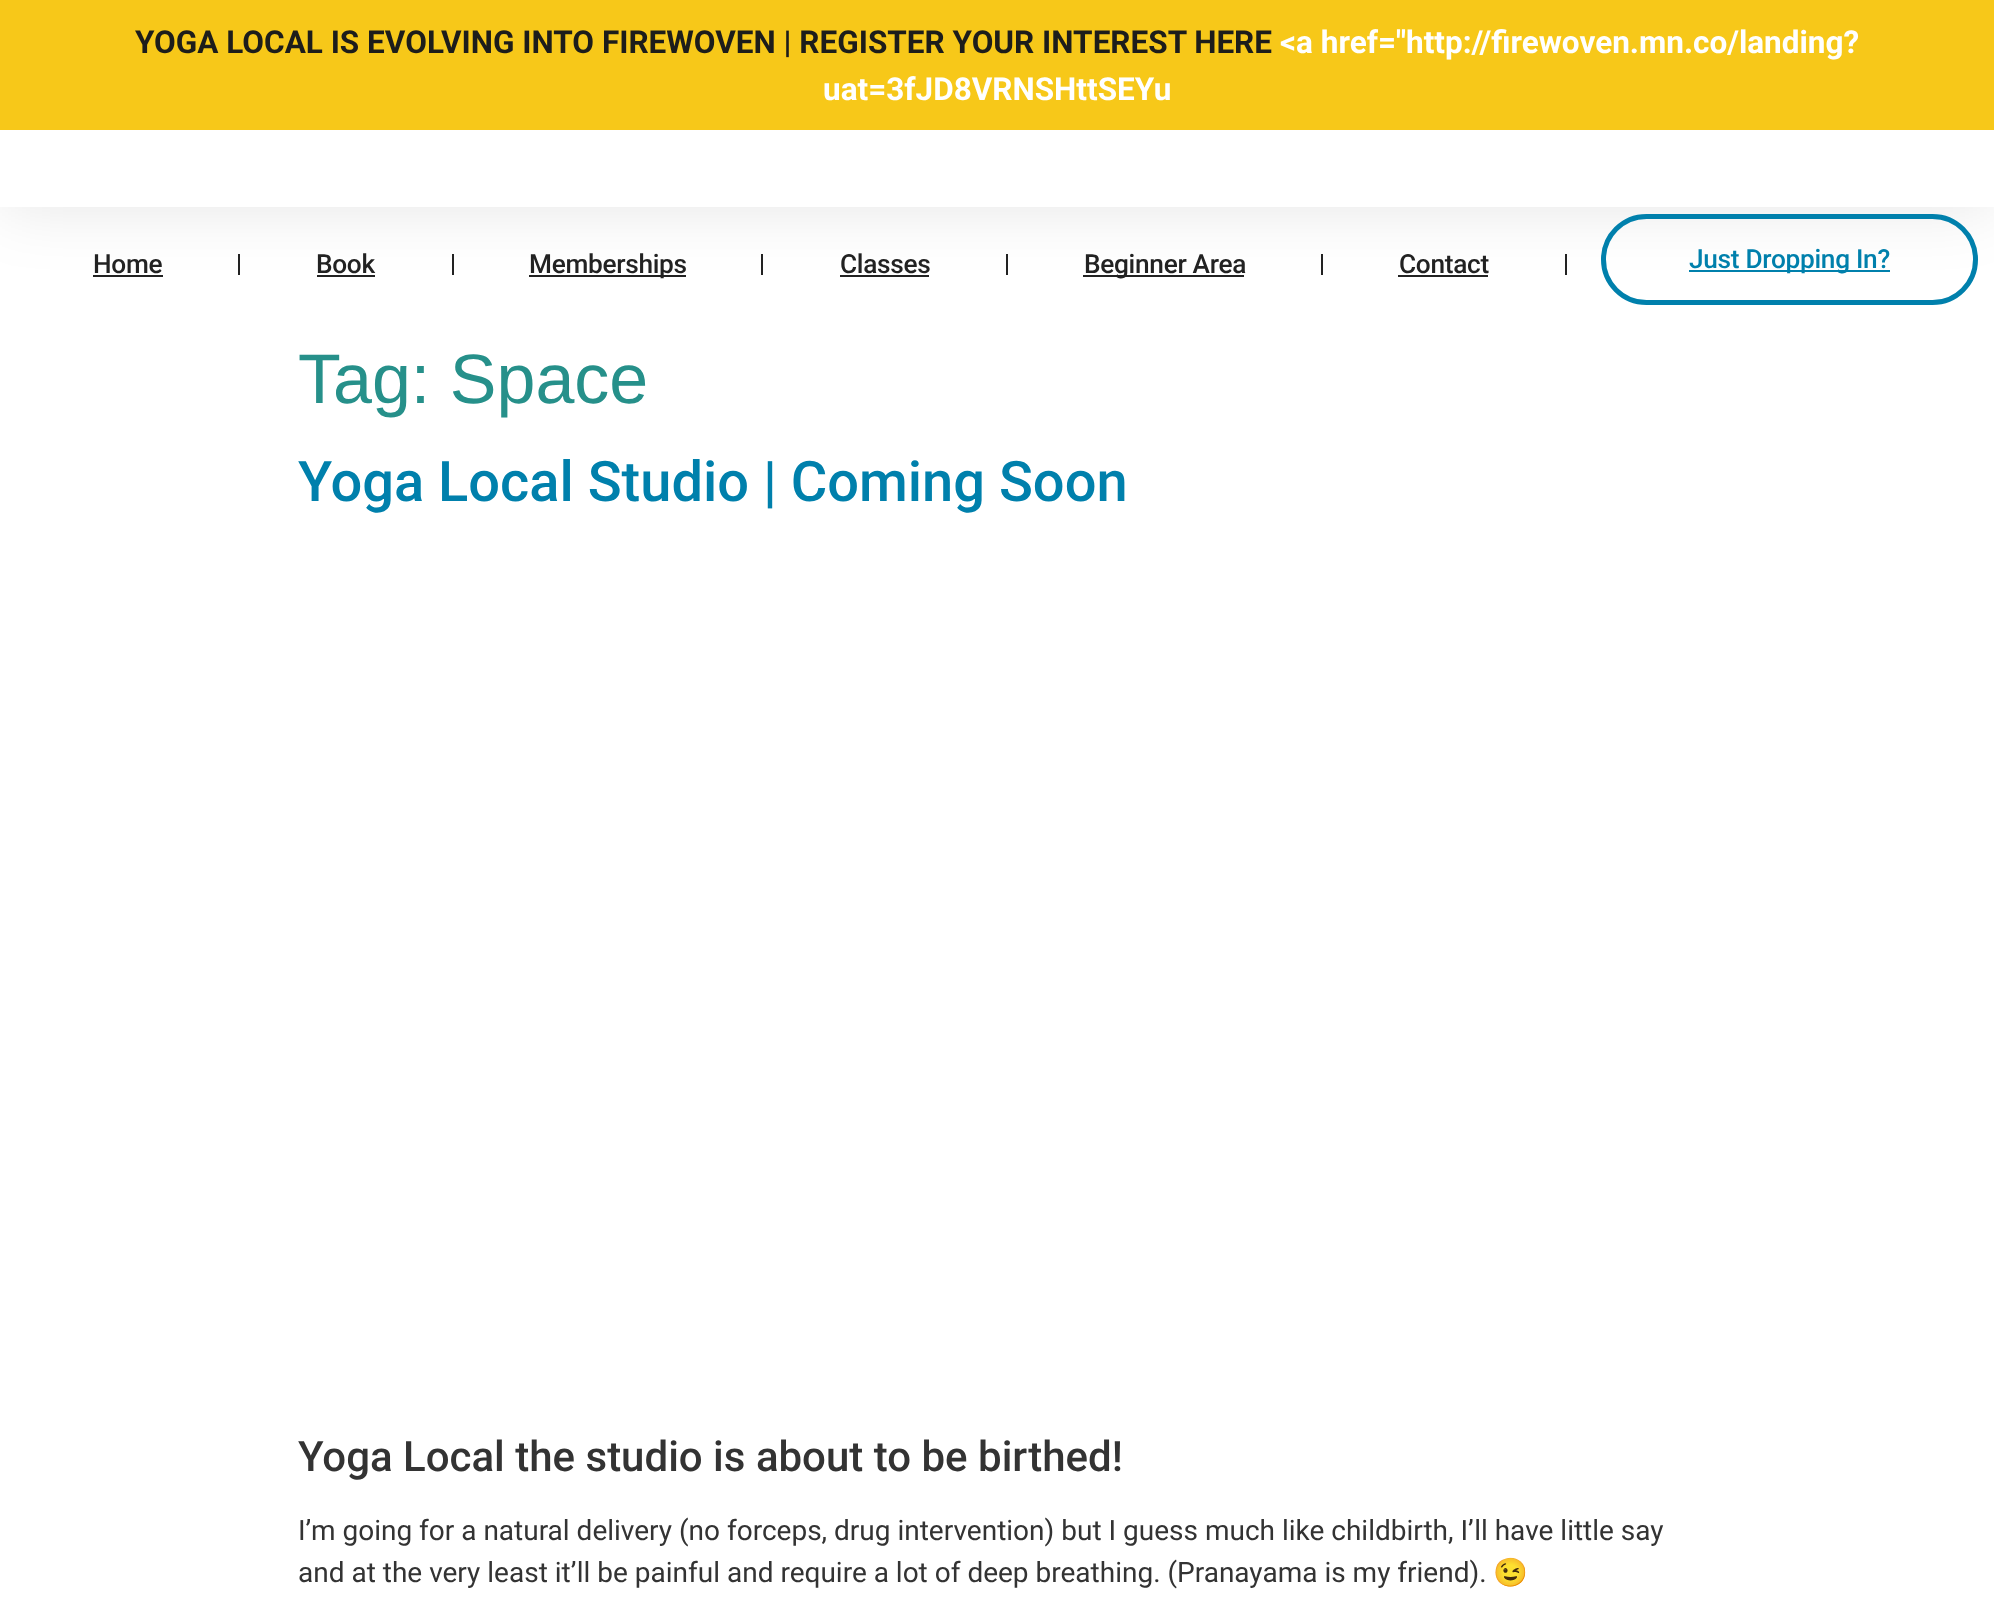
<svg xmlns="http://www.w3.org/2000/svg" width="1994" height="1611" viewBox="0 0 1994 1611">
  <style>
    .t1 { font: bold 31.5px Roboto; fill: #1d1d1b; }
    .t2 { font: bold 31.5px Roboto; fill: #fff; }
    .t3 { font: 500 26.25px Roboto; letter-spacing: -0.3px; fill: #222; }
    .t4 { font: 500 26.25px Roboto; letter-spacing: -0.3px; fill: #0080ac; }
    .t5 { font: 70px Liberation Sans; fill: #26908a; }
    .t6 { font: 500 56px Roboto; fill: #0080ac; }
    .t7 { font: 500 42px Roboto; fill: #333; }
    .t8 { font: 28px Roboto; fill: #333; }
    .t9 { font: 28px Noto Color Emoji; fill: #333; }
  </style>
  <defs>
    <clipPath id="clip1"><path d="M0 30H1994V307H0ZM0 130H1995V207H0Z" clip-rule="evenodd"/></clipPath>
  </defs>
  <rect width="100%" height="100%" fill="#fff"/>
  <g clip-path="url(#clip1)">
    <rect x="0" y="130" width="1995" height="77" fill="#0000001a" filter="blur(33px)"/>
  </g>
  <rect x="0" y="0" width="1994" height="130" fill="#f7c819"/>
  <text x="135" y="53" class="t1">YOGA LOCAL IS EVOLVING INTO FIREWOVEN | REGISTER YOUR INTEREST HERE</text>
  <text x="1280" y="53" class="t2">&lt;a href="http://firewoven.mn.co/landing?</text>
  <text x="823" y="100" class="t2">uat=3fJD8VRNSHttSEYu</text>
  <text x="93" y="273" class="t3">Home</text>
  <rect x="93" y="275" width="70" height="2" fill="#222"/>
  <rect x="238" y="254" width="2" height="21" fill="#222"/>
  <text x="316" y="273" class="t3">Book</text>
  <rect x="317" y="275" width="58" height="2" fill="#222"/>
  <rect x="452" y="254" width="2" height="21" fill="#222"/>
  <rect x="529" y="275" width="157" height="2" fill="#222"/>
  <text x="529" y="273" class="t3">Memberships</text>
  <rect x="761" y="254" width="2" height="21" fill="#222"/>
  <text x="840" y="273" class="t3">Classes</text>
  <rect x="840" y="275" width="89" height="2" fill="#222"/>
  <rect x="1006" y="254" width="2" height="21" fill="#222"/>
  <rect x="1083" y="275" width="161" height="2" fill="#222"/>
  <text x="1084" y="273" class="t3">Beginner Area</text>
  <rect x="1321" y="254" width="2" height="21" fill="#222"/>
  <text x="1399" y="273" class="t3">Contact</text>
  <rect x="1398" y="275" width="90" height="2" fill="#222"/>
  <rect x="1565" y="254" width="2" height="21" fill="#222"/>
  <rect x="1603.5" y="216.5" width="372" height="86" rx="43" fill="none" stroke="#0080ac" stroke-width="5"/>
  <rect x="1689" y="270" width="201" height="2" fill="#0080ac"/>
  <text x="1689" y="268" class="t4">Just Dropping In?</text>
  <text x="298" y="403" class="t5">Tag: Space</text>
  <text x="298" y="501" class="t6">Yoga Local Studio | Coming Soon</text>
  <text x="298" y="1471" class="t7">Yoga Local the studio is about to be birthed!</text>
  <text x="298" y="1540" class="t8">I’m going for a natural delivery (no forceps, drug intervention) but I guess much like childbirth, I’ll have little say</text>
  <text x="298" y="1582" class="t8">and at the very least it’ll be painful and require a lot of deep breathing. (Pranayama is my friend).</text>
  <text x="1493" y="1582" class="t9">😉</text>
</svg>
